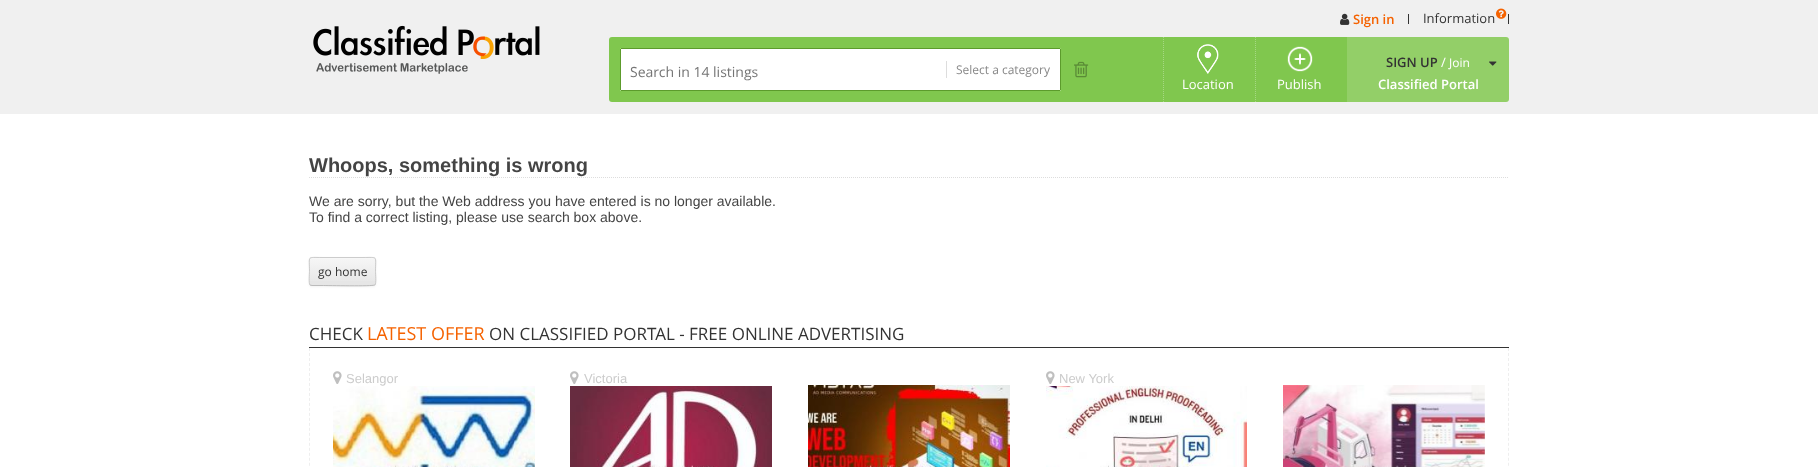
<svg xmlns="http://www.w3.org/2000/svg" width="1818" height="467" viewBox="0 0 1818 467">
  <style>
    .t1 { font: 600 13px Open Sans; fill: #f56200; }
    .t2 { font: 13px Open Sans; fill: #333; }
    .t3 { font: 14px Open Sans; fill: #757575; }
    .t4 { font: 12px Open Sans; fill: #888; }
    .t5 { font: 600 13px Open Sans; fill: #333; }
    .t6 { font: 13px Open Sans; fill: #fff; }
    .t7 { font: 12px Open Sans; fill: #fff; }
    .t8 { font: 600 13px Open Sans; fill: #fff; }
    .t9 { font: bold 20px Liberation Sans; fill: #444; }
    .t10 { font: 14px Liberation Sans; fill: #444; }
    .t11 { font: 12px Open Sans; fill: #333; }
    .t12 { font: 17px Open Sans; fill: #333; }
    .t13 { font: 18px Open Sans; fill: #f56200; }
    .t14 { font: 13px Liberation Sans; fill: #ccc; }
  </style>
  <defs>
    <linearGradient id="g1" gradientUnits="userSpaceOnUse" x1="343" y1="258" x2="343" y2="285"><stop offset="0" stop-color="#f6f6f6"/><stop offset="1" stop-color="#e6e6e6"/></linearGradient>
  </defs>
  <rect width="100%" height="100%" fill="#fff"/>
  <rect x="0" y="0" width="1818" height="114" fill="#f0f0f0"/>
  <image x="313" y="25" width="227" height="49" href="images/1.png"/>
  <image x="1340" y="13" width="10" height="12" href="images/2.png"/>
  <text x="1353" y="24" class="t1">Sign in</text>
  <rect x="1408" y="14" width="1" height="10" fill="#333"/>
  <text x="1423" y="23" class="t2">Information</text>
  <image x="1496" y="8" width="11" height="11" href="images/3.png"/>
  <rect x="1508" y="14" width="1" height="10" fill="#333"/>
  <rect x="609" y="37" width="900" height="65" rx="3" fill="#80c74e"/>
  <path d="M622 48H902V91H622C621 91 620 90 620 89V50C620 49 621 48 622 48Z" fill="#fff"/>
  <rect x="621" y="48" width="281" height="1" fill="#5c9b2c"/>
  <rect x="621" y="90" width="281" height="1" fill="#5c9b2c"/>
  <rect x="620" y="49" width="1" height="41" fill="#5c9b2c"/>
  <text x="630" y="77" class="t3">Search in 14 listings</text>
  <path d="M902 48H1059C1060 48 1061 49 1061 50V89C1061 90 1060 91 1059 91H902Z" fill="#fff"/>
  <rect x="902" y="48" width="158" height="1" fill="#5c9b2c"/>
  <rect x="1060" y="49" width="1" height="41" fill="#5c9b2c"/>
  <rect x="902" y="90" width="158" height="1" fill="#5c9b2c"/>
  <rect x="946" y="61" width="1" height="17" fill="#ddd"/>
  <text x="956" y="74" class="t4">Select a category</text>
  <image x="1074" y="61" width="15" height="17" href="images/4.png"/>
  <rect x="1347" y="37" width="162" height="65" fill="#ffffff26"/>
  <text x="1386" y="67" class="t5">SIGN UP</text>
  <text x="1441" y="67" class="t6">/</text>
  <text x="1449" y="67" class="t7">Join</text>
  <image x="1489" y="61" width="8" height="5" href="images/5.png"/>
  <text x="1378" y="89" class="t8">Classified Portal</text>
  <path d="M1163.5 37V102" fill="none" stroke="#a6d883" stroke-dasharray="1 1"/>
  <image x="1197" y="44" width="22" height="30" href="images/6.png"/>
  <text x="1182" y="89" class="t6">Location</text>
  <path d="M1255.5 37V102" fill="none" stroke="#a6d883" stroke-dasharray="1 1"/>
  <image x="1287" y="46" width="26" height="26" href="images/7.png"/>
  <text x="1277" y="89" class="t6">Publish</text>
  <path d="M309 177.5H1509" fill="none" stroke="#ddd" stroke-dasharray="1 1"/>
  <text x="309" y="172" class="t9">Whoops, something is wrong</text>
  <text x="309" y="206" class="t10">We are sorry, but the Web address you have entered is no longer available.</text>
  <text x="309" y="222" class="t10">To find a correct listing, please use search box above.</text>
  <rect x="309" y="258" width="67" height="29" rx="3" fill="#0000000d" filter="blur(1px)"/>
  <rect x="309" y="257" width="67" height="29" rx="3" fill="#e6e6e6"/>
  <rect x="310" y="258" width="65" height="23" fill="url(#g1)"/>
  <path d="M312 259H374L375 261C375 255 367 258 363 258H322C318 258 310 255 310 261C310 260 311 259 312 259Z" fill="#ffffff33"/>
  <path d="M375 285H374.5C372.5 286.5 328 285.5 322 285.5H312L310 285" fill="none" stroke="#bbb"/>
  <path d="M310 285C308.5 283 309.5 274 309.5 271.5C309.5 255.5 306.5 257.5 322 257.5H363C378.5 257.5 375.5 255.5 375.5 271.5C375.5 274 376.5 283 375 285" fill="none" stroke="#ccc"/>
  <text x="318" y="276" class="t11">go home</text>
  <rect x="309" y="347" width="1200" height="1" fill="#333"/>
  <text x="309" y="340" class="t12">CHECK</text>
  <text x="367" y="340" class="t13">LATEST OFFER</text>
  <text x="489" y="340" class="t12">ON CLASSIFIED PORTAL - FREE ONLINE ADVERTISING</text>
  <path d="M1508.5 348V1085" fill="none" stroke="#eee" stroke-dasharray="3 1.99"/>
  <path d="M309.5 348V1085" fill="none" stroke="#eee" stroke-dasharray="3 1.99"/>
  <image x="333" y="371" width="9" height="13" href="images/8.png"/>
  <text x="346" y="383" class="t14">Selangor</text>
  <image x="333" y="386" width="202" height="81" href="images/9.png"/>
  <image x="570" y="371" width="9" height="13" href="images/8.png"/>
  <text x="584" y="383" class="t14">Victoria</text>
  <image x="570" y="386" width="202" height="81" href="images/10.png"/>
  <image x="1046" y="371" width="9" height="13" href="images/8.png"/>
  <text x="1059" y="383" class="t14">New York</text>
  <image x="1046" y="386" width="201" height="81" href="images/11.png"/>
  <image x="808" y="385" width="202" height="82" href="images/12.png"/>
  <image x="1283" y="385" width="202" height="82" href="images/13.png"/>
</svg>
